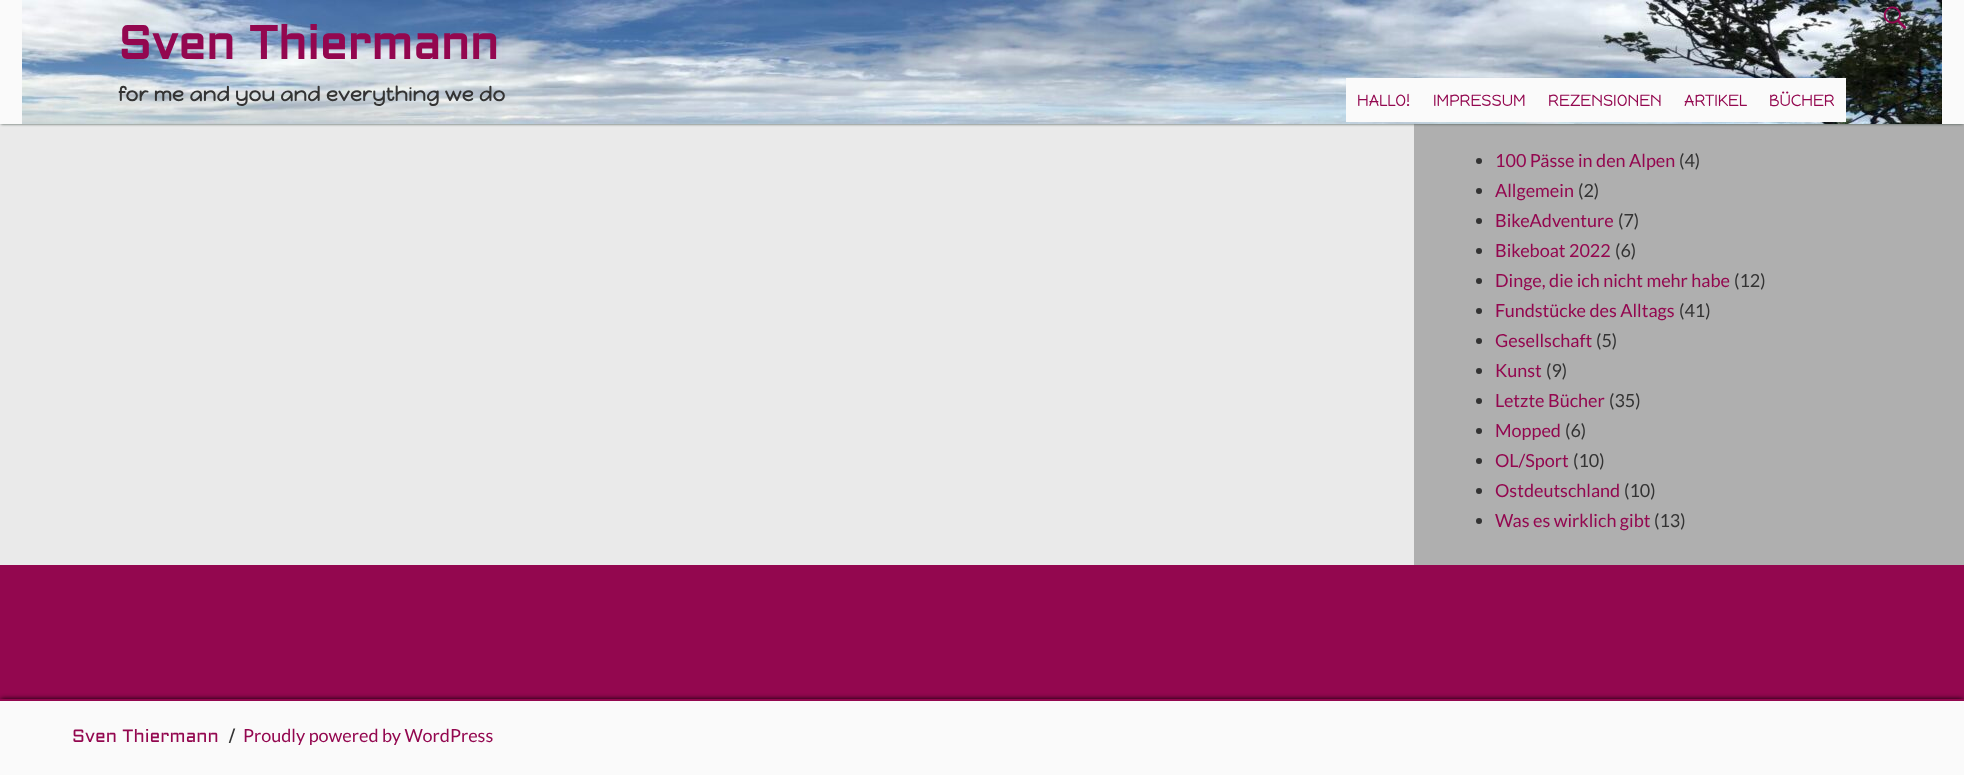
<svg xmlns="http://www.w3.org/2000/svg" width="1964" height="775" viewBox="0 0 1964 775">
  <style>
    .t1 { font: bold 46.75px Aldrich; fill: #93074f; }
    .t2 { font: bold 19.75px Happy Monkey; letter-spacing: 0.4px; fill: #333; }
    .t3 { font: 16.25px Happy Monkey; fill: #93074f; }
    .t4 { font: 18px Lato; fill: #93074f; }
    .t5 { font: 18px Lato; fill: #333; }
    .t6 { font: 18px Aldrich; fill: #93074f; }
    .t7 { font: 18px Aldrich; fill: #333; }
  </style>
  <rect width="100%" height="100%" fill="#eaeaea"/>
  <rect x="1414" y="124" width="550" height="441" fill="#afafaf"/>
  <rect x="1" y="2" width="1962" height="122" fill="#3c4b44" filter="blur(1.5px)"/>
  <rect x="0" y="0" width="1964" height="124" fill="#fafafa"/>
  <image x="22" y="0" width="1920" height="124" href="images/1.png"/>
  <image x="1883" y="6" width="24" height="23" href="images/2.png"/>
  <text x="118" y="59" class="t1">Sven Thiermann</text>
  <text x="118" y="101" class="t2">for me and you and everything we do</text>
  <rect x="1346" y="78" width="500" height="44" fill="#fafafa"/>
  <text x="1357" y="106" class="t3">HALLO!</text>
  <text x="1433" y="106" class="t3">IMPRESSUM</text>
  <text x="1548" y="106" class="t3">REZENSIONEN</text>
  <text x="1684" y="106" class="t3">ARTIKEL</text>
  <text x="1769" y="106" class="t3">BÜCHER</text>
  <circle cx="1479" cy="161" r="3" fill="#333"/>
  <text x="1495" y="167" class="t4">100 Pässe in den Alpen</text>
  <text x="1679" y="167" class="t5">(4)</text>
  <circle cx="1479" cy="191" r="3" fill="#333"/>
  <text x="1495" y="197" class="t4">Allgemein</text>
  <text x="1578" y="197" class="t5">(2)</text>
  <circle cx="1479" cy="221" r="3" fill="#333"/>
  <text x="1495" y="227" class="t4">BikeAdventure</text>
  <text x="1618" y="227" class="t5">(7)</text>
  <circle cx="1479" cy="251" r="3" fill="#333"/>
  <text x="1495" y="257" class="t4">Bikeboat 2022</text>
  <text x="1615" y="257" class="t5">(6)</text>
  <circle cx="1479" cy="281" r="3" fill="#333"/>
  <text x="1495" y="287" class="t4">Dinge, die ich nicht mehr habe</text>
  <text x="1734" y="287" class="t5">(12)</text>
  <circle cx="1479" cy="311" r="3" fill="#333"/>
  <text x="1495" y="317" class="t4">Fundstücke des Alltags</text>
  <text x="1679" y="317" class="t5">(41)</text>
  <circle cx="1479" cy="341" r="3" fill="#333"/>
  <text x="1495" y="347" class="t4">Gesellschaft</text>
  <text x="1596" y="347" class="t5">(5)</text>
  <circle cx="1479" cy="371" r="3" fill="#333"/>
  <text x="1495" y="377" class="t4">Kunst</text>
  <text x="1546" y="377" class="t5">(9)</text>
  <circle cx="1479" cy="401" r="3" fill="#333"/>
  <text x="1495" y="407" class="t4">Letzte Bücher</text>
  <text x="1609" y="407" class="t5">(35)</text>
  <circle cx="1479" cy="431" r="3" fill="#333"/>
  <text x="1495" y="437" class="t4">Mopped</text>
  <text x="1565" y="437" class="t5">(6)</text>
  <circle cx="1479" cy="461" r="3" fill="#333"/>
  <text x="1495" y="467" class="t4">OL/Sport</text>
  <text x="1573" y="467" class="t5">(10)</text>
  <circle cx="1479" cy="491" r="3" fill="#333"/>
  <text x="1495" y="497" class="t4">Ostdeutschland</text>
  <text x="1624" y="497" class="t5">(10)</text>
  <circle cx="1479" cy="521" r="3" fill="#333"/>
  <text x="1495" y="527" class="t4">Was es wirklich gibt</text>
  <text x="1654" y="527" class="t5">(13)</text>
  <rect x="0" y="565" width="1964" height="134" fill="#93074f"/>
  <rect x="1" y="699" width="1962" height="74" fill="#000" filter="blur(2.5px)"/>
  <rect x="0" y="701" width="1964" height="74" fill="#fafafa"/>
  <rect x="0" y="699" width="1964" height="2" fill="#93074f"/>
  <text x="72" y="742" class="t6">Sven Thiermann</text>
  <text x="228" y="742" class="t7">/</text>
  <text x="243" y="742" class="t4">Proudly powered by WordPress</text>
</svg>
